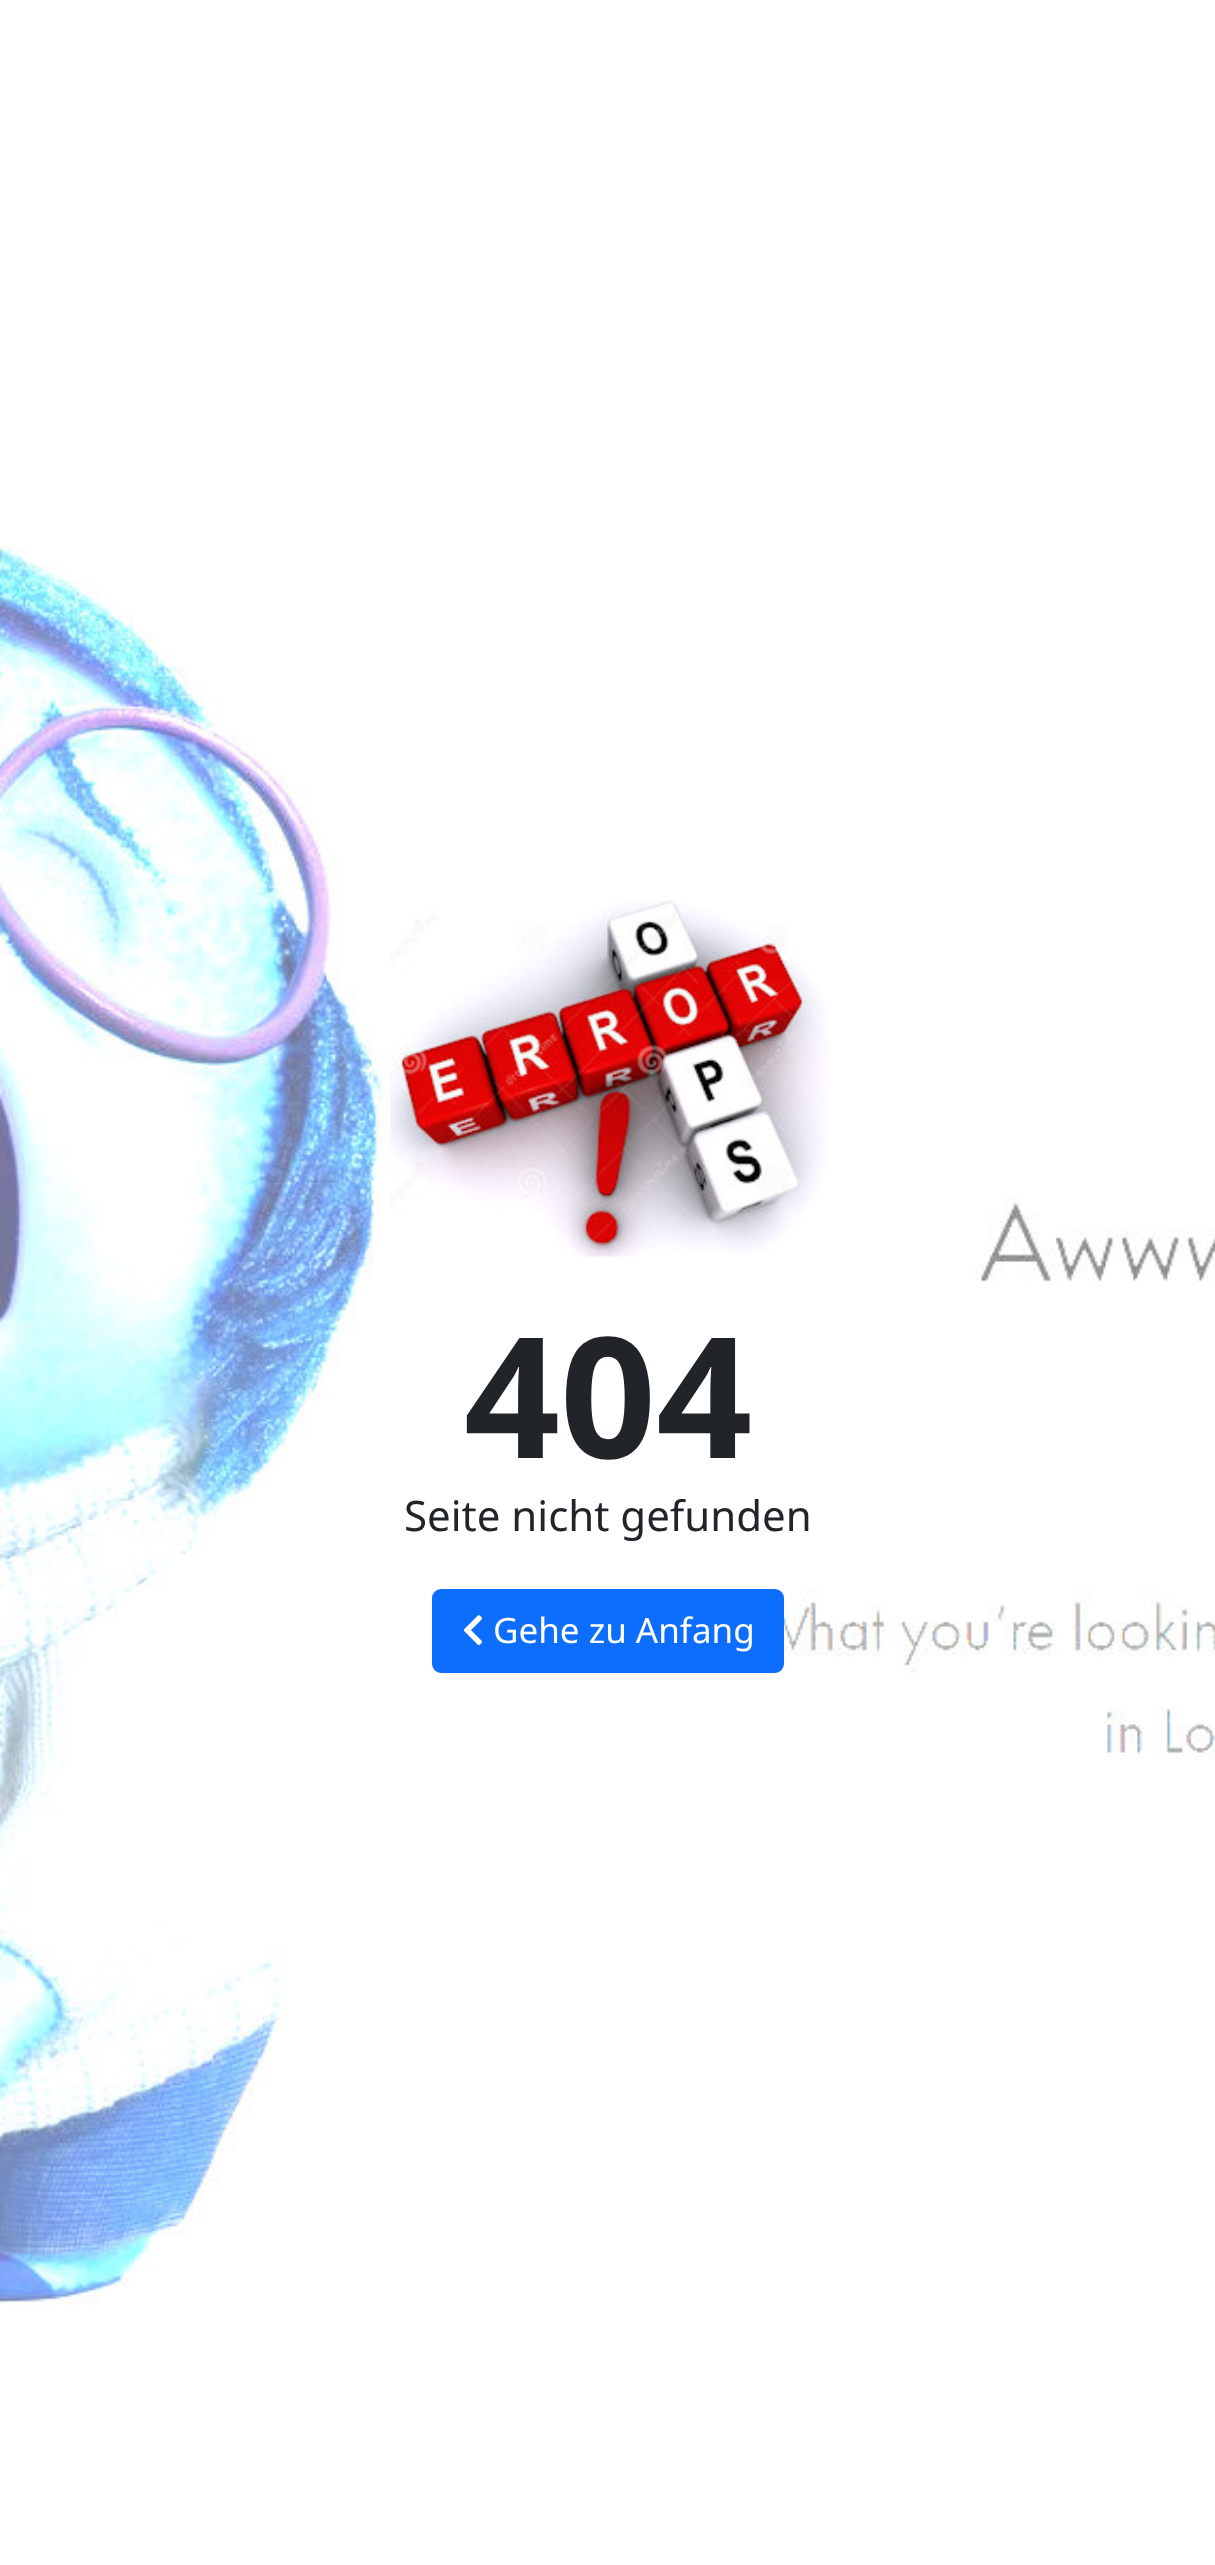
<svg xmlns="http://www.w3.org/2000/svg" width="1215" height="2565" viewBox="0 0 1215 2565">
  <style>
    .t1 { font: bold 168px Noto Sans; fill: #212529; }
    .t2 { font: 42px Noto Sans; fill: #212529; }
    .t3 { font: 35px Noto Sans; fill: #fff; }
  </style>
  <rect width="100%" height="100%" fill="#fff"/>
  <image x="0" y="546" width="1215" height="1760" href="images/1.png"/>
  <image x="390" y="900" width="438" height="357" href="images/2.png"/>
  <text x="464" y="1458" class="t1">404</text>
  <text x="404" y="1531" class="t2">Seite nicht gefunden</text>
  <rect x="433" y="1590" width="350" height="82" rx="8" fill="#0d6efd" stroke="#0d6efd" stroke-width="2"/>
  <image x="463" y="1615" width="19" height="30" href="images/3.png"/>
  <text x="493" y="1643" class="t3">Gehe zu Anfang</text>
</svg>
